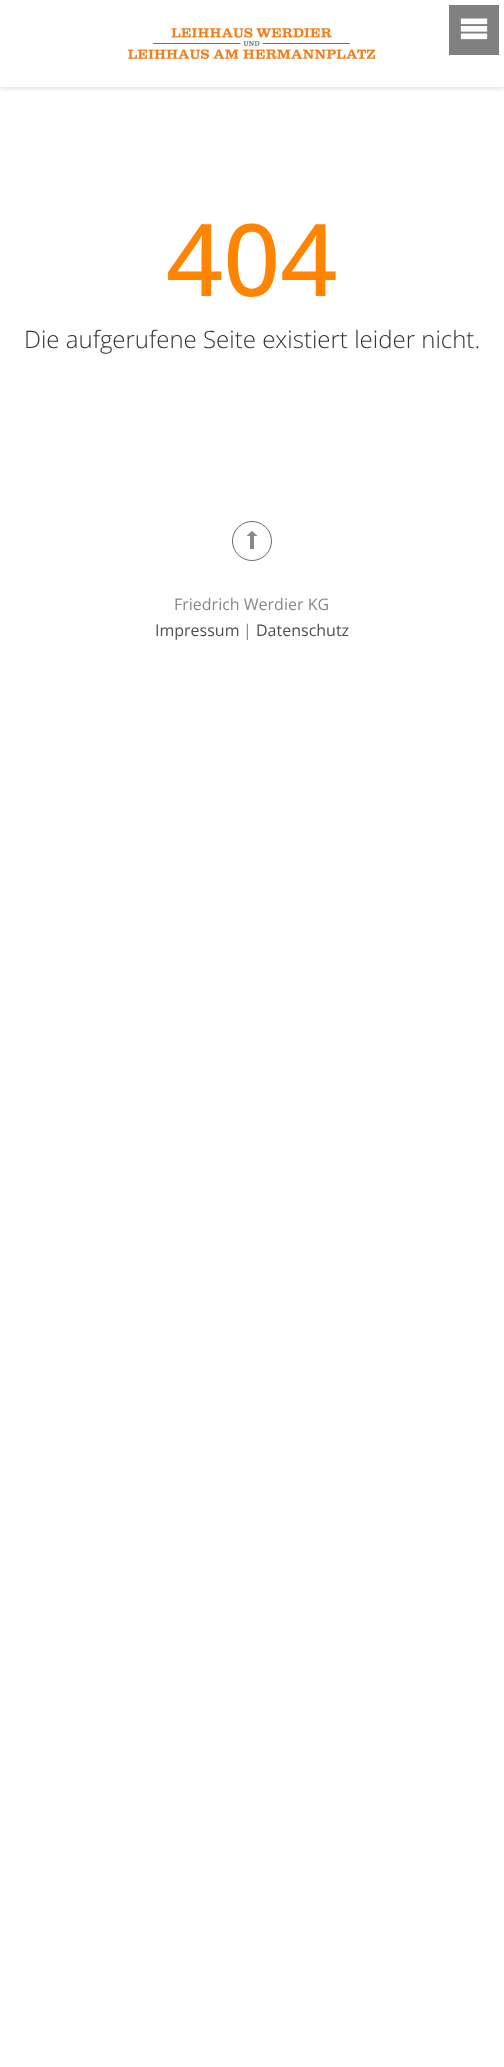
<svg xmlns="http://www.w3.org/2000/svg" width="504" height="2067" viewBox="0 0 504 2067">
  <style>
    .t1 { font: 500 100px Open Sans; fill: #ff8400; }
    .t2 { font: 300 24px Open Sans; fill: #333; }
    .t3 { font: 16px Open Sans; fill: #898787; }
    .t4 { font: 16px Open Sans; fill: #505050; }
  </style>
  <defs>
    <clipPath id="clip1"><rect x="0" y="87" width="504" height="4"/></clipPath>
  </defs>
  <rect width="100%" height="100%" fill="#fff"/>
  <g clip-path="url(#clip1)">
    <rect x="0" y="0" width="504" height="87" fill="#00000033" filter="blur(3px)"/>
  </g>
  <image x="128" y="28" width="247" height="31" href="images/1.png"/>
  <rect x="449" y="5" width="50" height="50" fill="#808080"/>
  <image x="460" y="18" width="28" height="22" href="images/2.png"/>
  <text x="166" y="296" class="t1">404</text>
  <text x="24" y="348" class="t2">Die aufgerufene Seite existiert leider nicht.</text>
  <circle cx="252" cy="541" r="19.5" fill="none" stroke="#6a6a6a"/>
  <image x="246" y="531" width="12" height="18" href="images/3.png"/>
  <text x="174" y="610" class="t3">Friedrich Werdier KG</text>
  <text x="155" y="636" class="t4">Impressum</text>
  <text x="243" y="636" class="t3">|</text>
  <text x="256" y="636" class="t4">Datenschutz</text>
</svg>
